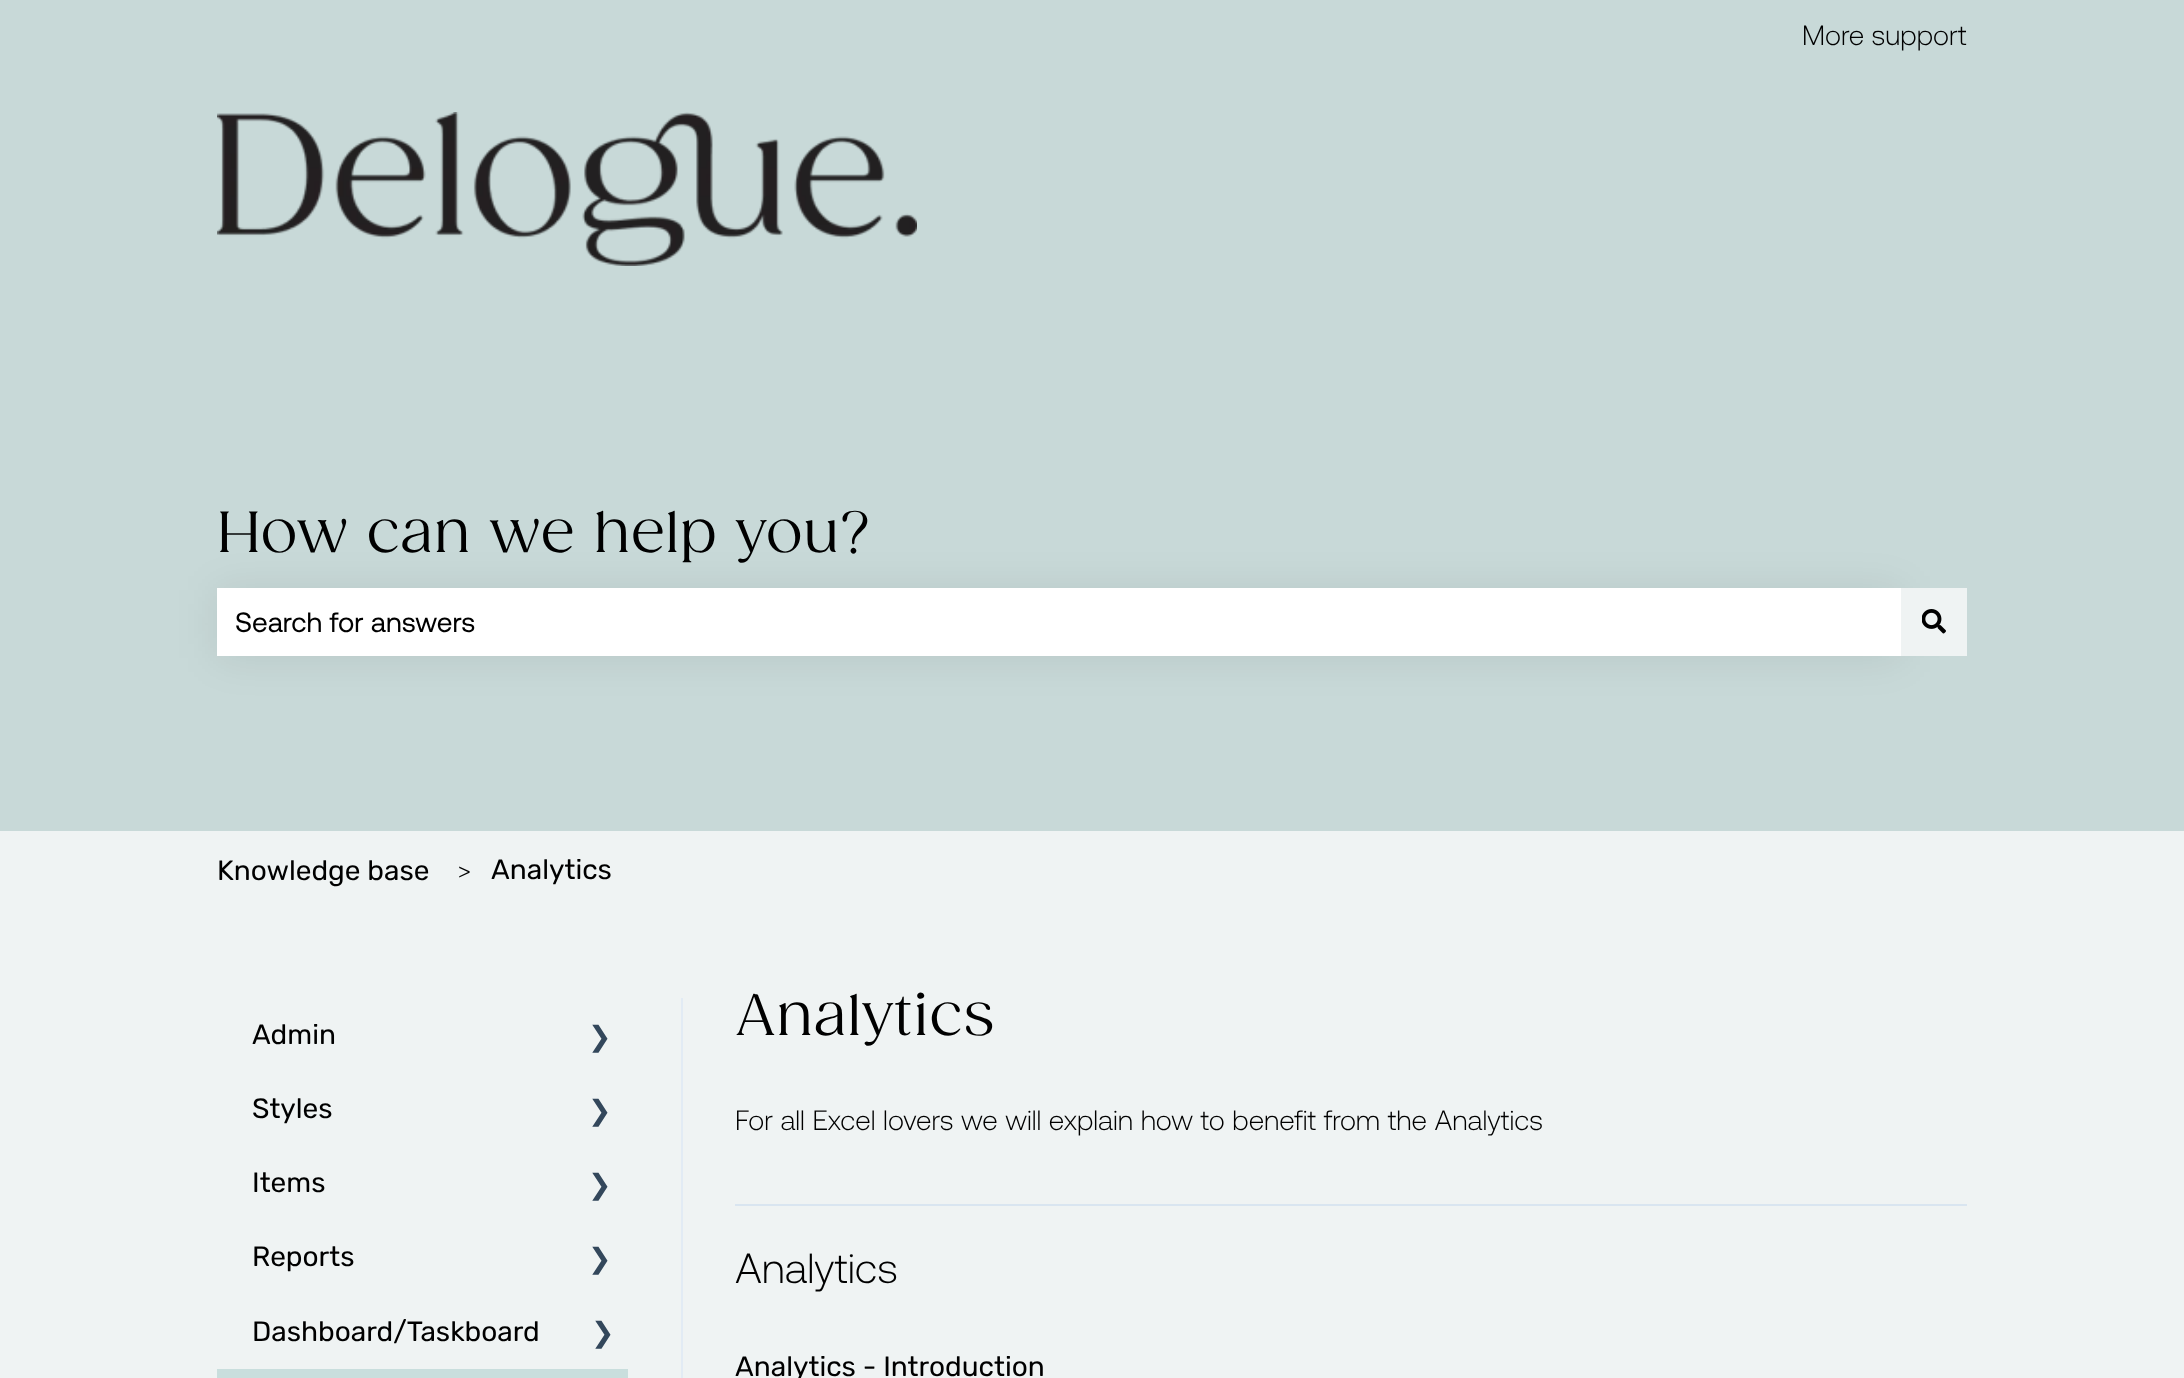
<svg xmlns="http://www.w3.org/2000/svg" width="2184" height="1378" viewBox="0 0 2184 1378">
  <style>
    .t1 { font: 300 28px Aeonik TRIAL; fill: #000; }
    .t2 { font: 56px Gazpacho; fill: #000; }
    .t3 { font: 28px Aeonik TRIAL; fill: #000; }
    .t4 { font: 28px Rubik; fill: #000; }
    .t5 { font: 300 28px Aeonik; fill: #000; }
    .t6 { font: 28px DejaVu Sans; fill: #33475b; }
    .t7 { font: 300 42px Aeonik TRIAL; fill: #000; }
  </style>
  <rect width="100%" height="100%" fill="#eff3f3"/>
  <rect x="0" y="0" width="2184" height="320" fill="#c8d9d8"/>
  <text x="1802" y="45" class="t1">More support</text>
  <image x="217" y="112" width="700" height="154" href="images/1.png"/>
  <rect x="0" y="320" width="2184" height="511" fill="#c8d9d8"/>
  <text x="217" y="552" class="t2">How can we help you?</text>
  <rect x="217" y="590" width="1684" height="68" fill="#00000014" filter="blur(21px)"/>
  <rect x="217" y="588" width="1684" height="68" fill="#fff"/>
  <text x="235" y="632" class="t3">Search for answers</text>
  <rect x="1901" y="588" width="66" height="68" fill="#eff3f3"/>
  <image x="1922" y="609" width="24" height="25" href="images/2.png"/>
  <text x="217" y="880" class="t4">Knowledge base</text>
  <text x="457" y="880" class="t5">&gt;</text>
  <text x="491" y="879" class="t4">Analytics</text>
  <rect x="681" y="998" width="2" height="380" fill="#e2ebf4"/>
  <text x="252" y="1044" class="t4">Admin</text>
  <text x="588" y="1046" class="t6">❯</text>
  <text x="252" y="1118" class="t4">Styles</text>
  <text x="588" y="1120" class="t6">❯</text>
  <text x="252" y="1192" class="t4">Items</text>
  <text x="588" y="1194" class="t6">❯</text>
  <text x="252" y="1266" class="t4">Reports</text>
  <text x="588" y="1268" class="t6">❯</text>
  <text x="252" y="1341" class="t4">Dashboard/Taskboard</text>
  <text x="591" y="1342" class="t6">❯</text>
  <rect x="217" y="1369" width="411" height="9" fill="#c9dedd"/>
  <rect x="735" y="1204" width="1232" height="2" fill="#d9e5f0"/>
  <text x="735" y="1035" class="t2">Analytics</text>
  <text x="735" y="1130" class="t1">For all Excel lovers we will explain how to benefit from the Analytics</text>
  <text x="735" y="1283" class="t7">Analytics</text>
  <text x="735" y="1376" class="t4">Analytics - Introduction</text>
</svg>
